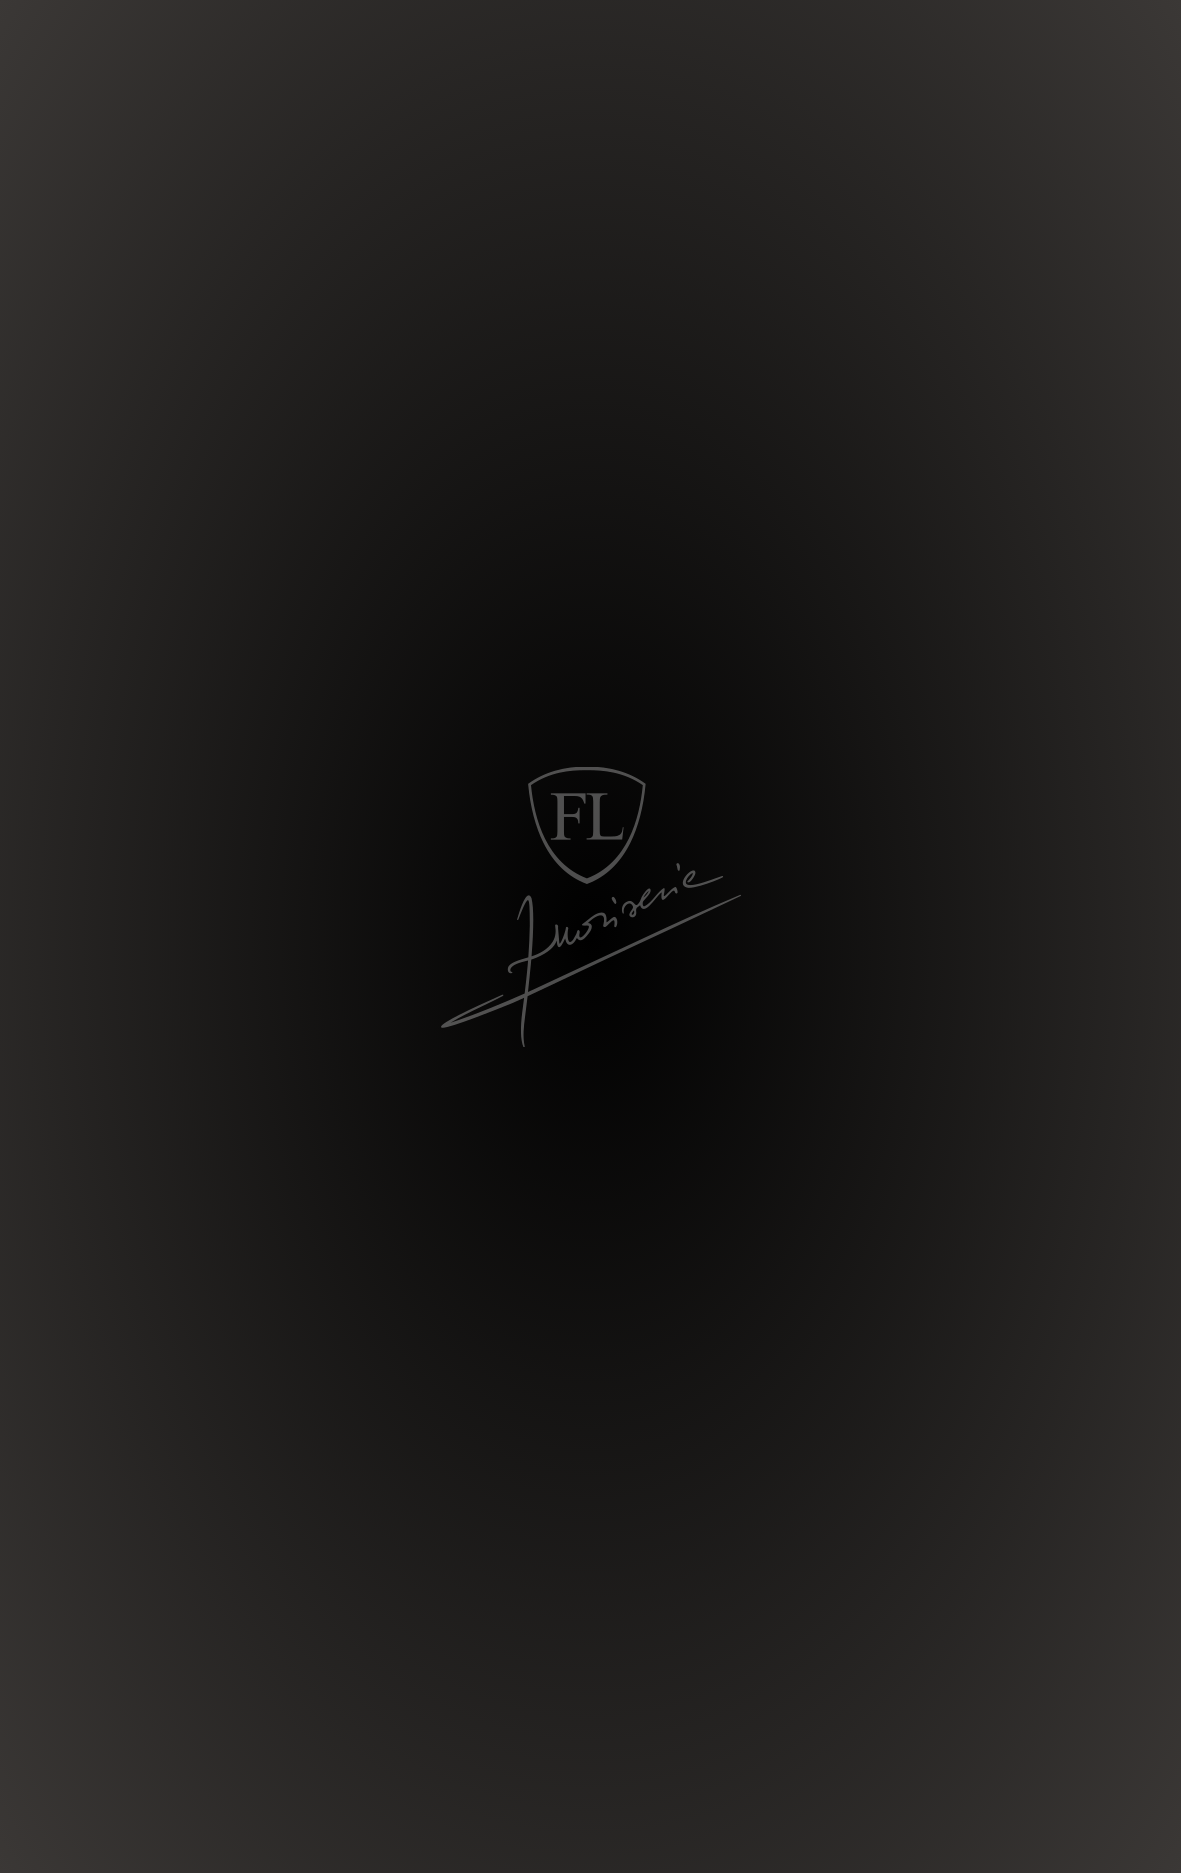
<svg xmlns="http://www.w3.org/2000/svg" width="1181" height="1873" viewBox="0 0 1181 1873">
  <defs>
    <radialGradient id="g1" gradientUnits="userSpaceOnUse" cx="0" cy="0" r="1" gradientTransform="matrix(836 0 0 1325 591 937)"><stop offset="0" stop-color="#000"/><stop offset="1" stop-color="#3b3836"/></radialGradient>
  </defs>
  <rect width="100%" height="100%" fill="#fff"/>
  <rect x="0" y="0" width="1181" height="1873" fill="url(#g1)"/>
  <image x="441" y="767" width="300" height="280" href="images/1.png"/>
</svg>
